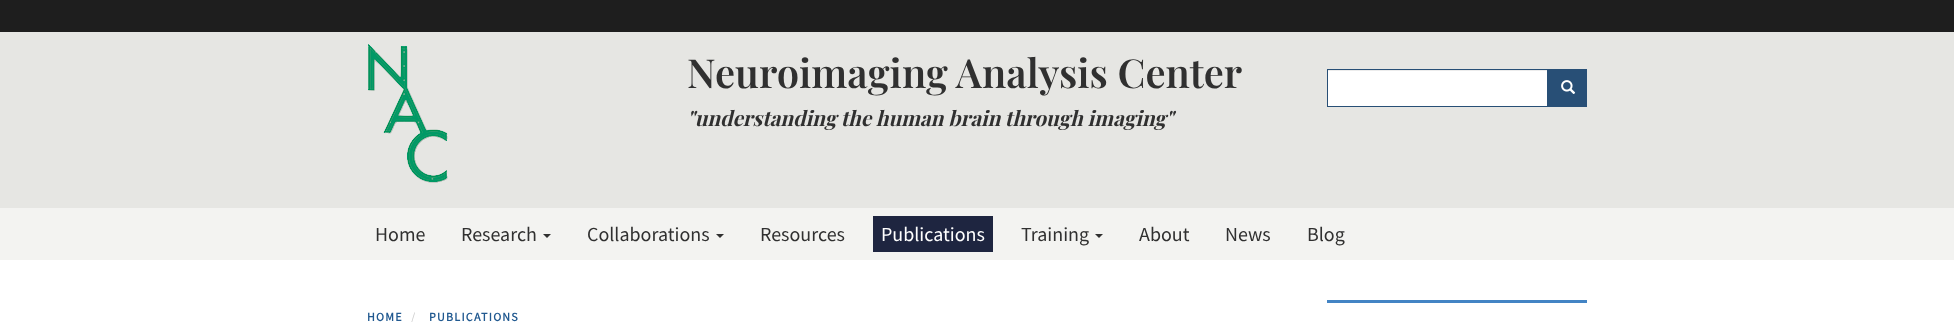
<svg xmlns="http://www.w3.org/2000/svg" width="1954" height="322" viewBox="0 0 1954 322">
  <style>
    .t1 { font: 600 40px Playfair Display; fill: #303030; }
    .t2 { font: italic bold 20.8px Playfair Display; fill: #303030; }
    .t3 { font: 20px Source Sans Pro; fill: #303030; }
    .t4 { font: 20px Source Sans Pro; fill: #fff; }
    .t5 { font: bold 12px Source Sans Pro; letter-spacing: 1.25px; fill: #215990; }
    .t6 { font: 12px Source Sans Pro; letter-spacing: 1.25px; fill: #ccc; }
  </style>
  <rect width="100%" height="100%" fill="#fff"/>
  <rect x="0" y="0" width="1954" height="32" fill="#1e1e1e"/>
  <rect x="0" y="32" width="1954" height="176" fill="#e6e6e3"/>
  <image x="368" y="44" width="80" height="139" href="images/1.png"/>
  <text x="687" y="88" class="t1">Neuroimaging Analysis Center</text>
  <text x="687" y="126" class="t2">"understanding the human brain through imaging"</text>
  <rect x="1328" y="71" width="219" height="35" fill="#fff"/>
  <rect x="1328" y="70" width="219" height="1" fill="#ececec"/>
  <rect x="1327.5" y="69.5" width="259" height="37" fill="none" stroke="#284f76"/>
  <rect x="1547" y="70" width="39" height="36" fill="#284f76"/>
  <image x="1561" y="80" width="15" height="14" href="images/2.png"/>
  <rect x="0" y="208" width="1954" height="52" fill="#f3f3f1"/>
  <text x="375" y="241" class="t3">Home</text>
  <text x="461" y="241" class="t3">Research</text>
  <path d="M543 234H551L547 238Z" fill="#303030"/>
  <text x="587" y="241" class="t3">Collaborations</text>
  <path d="M716 234H724L720 238Z" fill="#303030"/>
  <text x="760" y="241" class="t3">Resources</text>
  <rect x="873" y="216" width="120" height="36" fill="#1e2540"/>
  <text x="881" y="241" class="t4">Publications</text>
  <text x="1021" y="241" class="t3">Training</text>
  <path d="M1095 234H1103L1099 238Z" fill="#303030"/>
  <text x="1139" y="241" class="t3">About</text>
  <text x="1225" y="241" class="t3">News</text>
  <text x="1307" y="241" class="t3">Blog</text>
  <rect x="1327" y="300" width="260" height="3" fill="#4384c4"/>
  <text x="367" y="321" class="t5">HOME</text>
  <text x="411" y="321" class="t6">/</text>
  <text x="429" y="321" class="t5">PUBLICATIONS</text>
</svg>
